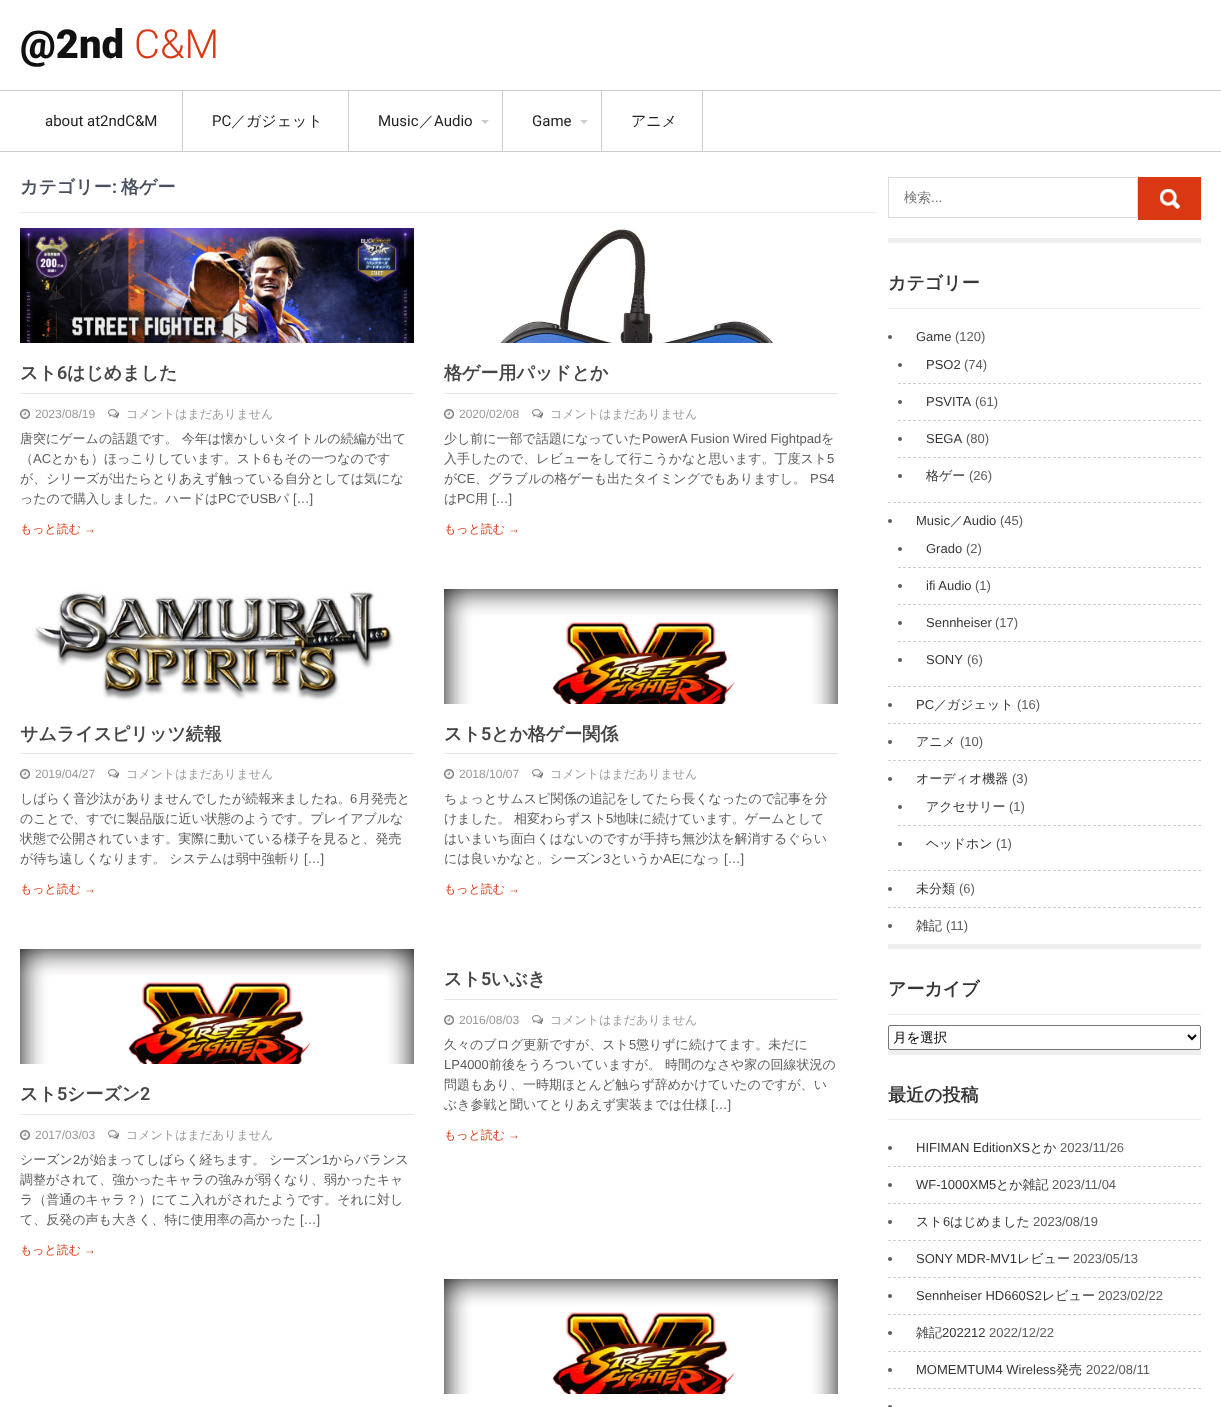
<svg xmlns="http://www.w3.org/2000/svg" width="1221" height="1407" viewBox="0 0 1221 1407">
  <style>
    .t1 { font: 900 40px Roboto; fill: #111; }
    .t2 { font: 300 40px Roboto; fill: #da3813; }
    .t3 { font: 15px Roboto; fill: #222; }
    .t4 { font: 500 15px WenQuanYi Zen Hei; fill: #222; }
    .t5 { font: bold 18px WenQuanYi Zen Hei; fill: #484f5e; }
    .t6 { font: bold 18px Roboto; fill: #484f5e; }
    .t7 { font: bold 18px WenQuanYi Zen Hei; fill: #464545; }
    .t8 { font: 600 18px Roboto; fill: #464545; }
    .t9 { font: 12px Liberation Sans; fill: #999; }
    .t10 { font: 500 12px WenQuanYi Zen Hei; fill: #999; }
    .t11 { font: 500 13px WenQuanYi Zen Hei; fill: #5c5c5c; }
    .t12 { font: 13px Liberation Sans; fill: #5c5c5c; }
    .t13 { font: 500 12px WenQuanYi Zen Hei; fill: #da3813; }
    .t14 { font: 12px Liberation Sans; fill: #da3813; }
    .t15 { font: 500 13.5px WenQuanYi Zen Hei; fill: #757575; }
    .t16 { font: 13.5px Liberation Sans; fill: #757575; }
    .t17 { font: bold 18px WenQuanYi Zen Hei; fill: #363636; }
    .t18 { font: 13px Liberation Sans; fill: #363636; }
    .t19 { font: 500 13px WenQuanYi Zen Hei; fill: #363636; }
    .t20 { font: 500 13.5px WenQuanYi Zen Hei; fill: #000; }
  </style>
  <rect width="100%" height="100%" fill="#fff"/>
  <text x="20" y="58" class="t1">@2nd</text>
  <text x="134" y="58" class="t2">C&amp;M</text>
  <rect x="0" y="90" width="1221" height="1" fill="#ccc"/>
  <rect x="0" y="151" width="1221" height="1" fill="#ccc"/>
  <rect x="182" y="91" width="1" height="60" fill="#ccc"/>
  <text x="45" y="126" class="t3">about at2ndC&amp;M</text>
  <rect x="348" y="91" width="1" height="60" fill="#ccc"/>
  <text x="212" y="126" class="t3">PC</text>
  <text x="231" y="126" class="t4">／ガジェット</text>
  <rect x="502" y="91" width="1" height="60" fill="#ccc"/>
  <text x="378" y="126" class="t3">Music</text>
  <text x="419" y="126" class="t4">／</text>
  <text x="434" y="126" class="t3">Audio</text>
  <path d="M481 120H489L485 124Z" fill="#ccc"/>
  <rect x="601" y="91" width="1" height="60" fill="#ccc"/>
  <text x="532" y="126" class="t3">Game</text>
  <path d="M580 120H588L584 124Z" fill="#ccc"/>
  <rect x="702" y="91" width="1" height="60" fill="#ccc"/>
  <text x="631" y="126" class="t4">アニメ</text>
  <rect x="20" y="212" width="856" height="1" fill="#eee"/>
  <text x="20" y="193" class="t5">カテゴリー</text>
  <text x="112" y="193" class="t6">:</text>
  <text x="121" y="193" class="t5">格ゲー</text>
  <image x="20" y="228" width="394" height="115" href="images/1.png"/>
  <rect x="20" y="393" width="394" height="1" fill="#e8e6e6"/>
  <text x="20" y="379" class="t7">スト</text>
  <text x="57" y="379" class="t8">6</text>
  <text x="67" y="379" class="t7">はじめました</text>
  <image x="20" y="409" width="10" height="10" href="images/2.png"/>
  <text x="35" y="418" class="t9">2023/08/19</text>
  <image x="108" y="409" width="11" height="9" href="images/3.png"/>
  <text x="126" y="418" class="t10">コメントはまだありません</text>
  <text x="20" y="443" class="t11">唐突にゲームの話題です。 今年は懐かしいタイトルの続編が出て</text>
  <text x="20" y="463" class="t11">（</text>
  <text x="33" y="463" class="t12">AC</text>
  <text x="51" y="463" class="t11">とかも）ほっこりしています。スト</text>
  <text x="263" y="463" class="t12">6</text>
  <text x="271" y="463" class="t11">もその一つなのです</text>
  <text x="20" y="483" class="t11">が、シリーズが出たらとりあえず触っている自分としては気にな</text>
  <text x="20" y="503" class="t11">ったので購入しました。ハードは</text>
  <text x="218" y="503" class="t12">PC</text>
  <text x="236" y="503" class="t11">で</text>
  <text x="250" y="503" class="t12">USB</text>
  <text x="276" y="503" class="t11">パ</text>
  <text x="293" y="503" class="t12">[…]</text>
  <text x="20" y="533" class="t13">もっと読む</text>
  <text x="84" y="533" class="t14">→</text>
  <image x="444" y="228" width="394" height="115" href="images/4.png"/>
  <rect x="444" y="393" width="394" height="1" fill="#e8e6e6"/>
  <text x="444" y="379" class="t7">格ゲー用パッドとか</text>
  <image x="444" y="409" width="10" height="10" href="images/2.png"/>
  <text x="459" y="418" class="t9">2020/02/08</text>
  <image x="532" y="409" width="11" height="9" href="images/3.png"/>
  <text x="550" y="418" class="t10">コメントはまだありません</text>
  <text x="444" y="443" class="t11">少し前に一部で話題になっていた</text>
  <text x="642" y="443" class="t12">PowerA Fusion Wired Fightpad</text>
  <text x="821" y="443" class="t11">を</text>
  <text x="444" y="463" class="t11">入手したので、レビューをして行こうかなと思います。丁度スト</text>
  <text x="827" y="463" class="t12">5</text>
  <text x="444" y="483" class="t11">が</text>
  <text x="457" y="483" class="t12">CE</text>
  <text x="475" y="483" class="t11">、グラブルの格ゲーも出たタイミングでもありますし。</text>
  <text x="810" y="483" class="t12">PS4</text>
  <text x="444" y="503" class="t11">は</text>
  <text x="457" y="503" class="t12">PC</text>
  <text x="475" y="503" class="t11">用</text>
  <text x="492" y="503" class="t12">[…]</text>
  <text x="444" y="533" class="t13">もっと読む</text>
  <text x="508" y="533" class="t14">→</text>
  <image x="20" y="589" width="394" height="115" href="images/5.png"/>
  <rect x="20" y="753" width="394" height="1" fill="#e8e6e6"/>
  <text x="20" y="740" class="t7">サムライスピリッツ続報</text>
  <image x="20" y="769" width="10" height="10" href="images/2.png"/>
  <text x="35" y="778" class="t9">2019/04/27</text>
  <image x="108" y="769" width="11" height="9" href="images/3.png"/>
  <text x="126" y="778" class="t10">コメントはまだありません</text>
  <text x="20" y="803" class="t11">しばらく音沙汰がありませんでしたが続報来ましたね。</text>
  <text x="350" y="803" class="t12">6</text>
  <text x="358" y="803" class="t11">月発売と</text>
  <text x="20" y="823" class="t11">のことで、すでに製品版に近い状態のようです。プレイアブルな</text>
  <text x="20" y="843" class="t11">状態で公開されています。実際に動いている様子を見ると、発売</text>
  <text x="20" y="863" class="t11">が待ち遠しくなります。 システムは弱中強斬り</text>
  <text x="304" y="863" class="t12">[…]</text>
  <text x="20" y="893" class="t13">もっと読む</text>
  <text x="84" y="893" class="t14">→</text>
  <image x="444" y="589" width="394" height="115" href="images/6.png"/>
  <rect x="444" y="753" width="394" height="1" fill="#e8e6e6"/>
  <text x="444" y="740" class="t7">スト</text>
  <text x="481" y="740" class="t8">5</text>
  <text x="491" y="740" class="t7">とか格ゲー関係</text>
  <image x="444" y="769" width="10" height="10" href="images/2.png"/>
  <text x="459" y="778" class="t9">2018/10/07</text>
  <image x="532" y="769" width="11" height="9" href="images/3.png"/>
  <text x="550" y="778" class="t10">コメントはまだありません</text>
  <text x="444" y="803" class="t11">ちょっとサムスピ関係の追記をしてたら長くなったので記事を分</text>
  <text x="444" y="823" class="t11">けました。 相変わらずスト</text>
  <text x="606" y="823" class="t12">5</text>
  <text x="613" y="823" class="t11">地味に続けています。ゲームとして</text>
  <text x="444" y="843" class="t11">はいまいち面白くはないのですが手持ち無沙汰を解消するぐらい</text>
  <text x="444" y="863" class="t11">には良いかなと。シーズン</text>
  <text x="603" y="863" class="t12">3</text>
  <text x="610" y="863" class="t11">というか</text>
  <text x="663" y="863" class="t12">AE</text>
  <text x="680" y="863" class="t11">になっ</text>
  <text x="724" y="863" class="t12">[…]</text>
  <text x="444" y="893" class="t13">もっと読む</text>
  <text x="508" y="893" class="t14">→</text>
  <rect x="444" y="999" width="394" height="1" fill="#e8e6e6"/>
  <text x="444" y="985" class="t7">スト</text>
  <text x="481" y="985" class="t8">5</text>
  <text x="491" y="985" class="t7">いぶき</text>
  <image x="444" y="1015" width="10" height="10" href="images/2.png"/>
  <text x="459" y="1024" class="t9">2016/08/03</text>
  <image x="532" y="1015" width="11" height="9" href="images/3.png"/>
  <text x="550" y="1024" class="t10">コメントはまだありません</text>
  <text x="444" y="1049" class="t11">久々のブログ更新ですが、スト</text>
  <text x="629" y="1049" class="t12">5</text>
  <text x="636" y="1049" class="t11">懲りずに続けてます。未だに</text>
  <text x="444" y="1069" class="t12">LP4000</text>
  <text x="489" y="1069" class="t11">前後をうろついていますが。 時間のなさや家の回線状況の</text>
  <text x="444" y="1089" class="t11">問題もあり、一時期ほとんど触らず辞めかけていたのですが、い</text>
  <text x="444" y="1109" class="t11">ぶき参戦と聞いてとりあえず実装までは仕様</text>
  <text x="711" y="1109" class="t12">[…]</text>
  <text x="444" y="1139" class="t13">もっと読む</text>
  <text x="508" y="1139" class="t14">→</text>
  <image x="20" y="949" width="394" height="115" href="images/7.png"/>
  <rect x="20" y="1114" width="394" height="1" fill="#e8e6e6"/>
  <text x="20" y="1100" class="t7">スト</text>
  <text x="57" y="1100" class="t8">5</text>
  <text x="67" y="1100" class="t7">シーズン</text>
  <text x="140" y="1100" class="t8">2</text>
  <image x="20" y="1130" width="10" height="10" href="images/2.png"/>
  <text x="35" y="1139" class="t9">2017/03/03</text>
  <image x="108" y="1130" width="11" height="9" href="images/3.png"/>
  <text x="126" y="1139" class="t10">コメントはまだありません</text>
  <text x="20" y="1164" class="t11">シーズン</text>
  <text x="73" y="1164" class="t12">2</text>
  <text x="80" y="1164" class="t11">が始まってしばらく経ちます。 シーズン</text>
  <text x="322" y="1164" class="t12">1</text>
  <text x="329" y="1164" class="t11">からバランス</text>
  <text x="20" y="1184" class="t11">調整がされて、強かったキャラの強みが弱くなり、弱かったキャ</text>
  <text x="20" y="1204" class="t11">ラ（普通のキャラ？）にてこ入れがされたようです。それに対し</text>
  <text x="20" y="1224" class="t11">て、反発の声も大きく、特に使用率の高かった</text>
  <text x="300" y="1224" class="t12">[…]</text>
  <text x="20" y="1254" class="t13">もっと読む</text>
  <text x="84" y="1254" class="t14">→</text>
  <image x="444" y="1279" width="394" height="115" href="images/7.png"/>
  <rect x="888" y="238" width="313" height="5" fill="#eee"/>
  <rect x="888.5" y="177.5" width="249" height="40" fill="none" stroke="#ddd"/>
  <text x="904" y="202" class="t15">検索</text>
  <text x="931" y="202" class="t16">...</text>
  <rect x="1138" y="177" width="63" height="43" fill="#da3813"/>
  <image x="1160" y="189" width="20" height="20" href="images/8.png"/>
  <rect x="888" y="944" width="313" height="5" fill="#eee"/>
  <rect x="888" y="308" width="313" height="1" fill="#edecec"/>
  <text x="888" y="289" class="t17">カテゴリー</text>
  <path d="M888 502.5H1201" fill="none" stroke="#d0cfcf" stroke-dasharray="3 2"/>
  <circle cx="890" cy="337" r="2" fill="#5c5c5c"/>
  <text x="916" y="341" class="t18">Game</text>
  <text x="955" y="341" class="t12">(120)</text>
  <path d="M898 383.5H1201" fill="none" stroke="#d0cfcf" stroke-dasharray="3 2"/>
  <circle cx="900" cy="365" r="2" fill="#5c5c5c"/>
  <text x="926" y="369" class="t18">PSO2</text>
  <text x="964" y="369" class="t12">(74)</text>
  <path d="M898 420.5H1201" fill="none" stroke="#d0cfcf" stroke-dasharray="3 2"/>
  <circle cx="900" cy="402" r="2" fill="#5c5c5c"/>
  <text x="926" y="406" class="t18">PSVITA</text>
  <text x="975" y="406" class="t12">(61)</text>
  <path d="M898 457.5H1201" fill="none" stroke="#d0cfcf" stroke-dasharray="3 2"/>
  <circle cx="900" cy="439" r="2" fill="#5c5c5c"/>
  <text x="926" y="443" class="t18">SEGA</text>
  <text x="966" y="443" class="t12">(80)</text>
  <circle cx="900" cy="476" r="2" fill="#5c5c5c"/>
  <text x="926" y="480" class="t19">格ゲー</text>
  <text x="969" y="480" class="t12">(26)</text>
  <path d="M888 686.5H1201" fill="none" stroke="#d0cfcf" stroke-dasharray="3 2"/>
  <circle cx="890" cy="521" r="2" fill="#5c5c5c"/>
  <text x="916" y="525" class="t18">Music</text>
  <text x="950" y="525" class="t19">／</text>
  <text x="963" y="525" class="t18">Audio</text>
  <text x="1000" y="525" class="t12">(45)</text>
  <path d="M898 567.5H1201" fill="none" stroke="#d0cfcf" stroke-dasharray="3 2"/>
  <circle cx="900" cy="549" r="2" fill="#5c5c5c"/>
  <text x="926" y="553" class="t18">Grado</text>
  <text x="966" y="553" class="t12">(2)</text>
  <path d="M898 604.5H1201" fill="none" stroke="#d0cfcf" stroke-dasharray="3 2"/>
  <circle cx="900" cy="586" r="2" fill="#5c5c5c"/>
  <text x="926" y="590" class="t18">ifi Audio</text>
  <text x="975" y="590" class="t12">(1)</text>
  <path d="M898 641.5H1201" fill="none" stroke="#d0cfcf" stroke-dasharray="3 2"/>
  <circle cx="900" cy="623" r="2" fill="#5c5c5c"/>
  <text x="926" y="627" class="t18">Sennheiser</text>
  <text x="995" y="627" class="t12">(17)</text>
  <circle cx="900" cy="660" r="2" fill="#5c5c5c"/>
  <text x="926" y="664" class="t18">SONY</text>
  <text x="967" y="664" class="t12">(6)</text>
  <path d="M888 723.5H1201" fill="none" stroke="#d0cfcf" stroke-dasharray="3 2"/>
  <circle cx="890" cy="705" r="2" fill="#5c5c5c"/>
  <text x="916" y="709" class="t18">PC</text>
  <text x="934" y="709" class="t19">／ガジェット</text>
  <text x="1017" y="709" class="t12">(16)</text>
  <path d="M888 760.5H1201" fill="none" stroke="#d0cfcf" stroke-dasharray="3 2"/>
  <circle cx="890" cy="742" r="2" fill="#5c5c5c"/>
  <text x="916" y="746" class="t19">アニメ</text>
  <text x="960" y="746" class="t12">(10)</text>
  <path d="M888 870.5H1201" fill="none" stroke="#d0cfcf" stroke-dasharray="3 2"/>
  <circle cx="890" cy="779" r="2" fill="#5c5c5c"/>
  <text x="916" y="783" class="t19">オーディオ機器</text>
  <text x="1012" y="783" class="t12">(3)</text>
  <path d="M898 825.5H1201" fill="none" stroke="#d0cfcf" stroke-dasharray="3 2"/>
  <circle cx="900" cy="807" r="2" fill="#5c5c5c"/>
  <text x="926" y="811" class="t19">アクセサリー</text>
  <text x="1009" y="811" class="t12">(1)</text>
  <circle cx="900" cy="844" r="2" fill="#5c5c5c"/>
  <text x="926" y="848" class="t19">ヘッドホン</text>
  <text x="996" y="848" class="t12">(1)</text>
  <path d="M888 907.5H1201" fill="none" stroke="#d0cfcf" stroke-dasharray="3 2"/>
  <circle cx="890" cy="889" r="2" fill="#5c5c5c"/>
  <text x="916" y="893" class="t19">未分類</text>
  <text x="959" y="893" class="t12">(6)</text>
  <circle cx="890" cy="926" r="2" fill="#5c5c5c"/>
  <text x="916" y="930" class="t19">雑記</text>
  <text x="946" y="930" class="t12">(11)</text>
  <rect x="888" y="1050" width="313" height="5" fill="#eee"/>
  <rect x="888" y="1014" width="313" height="1" fill="#edecec"/>
  <text x="888" y="995" class="t17">アーカイブ</text>
  <rect x="888.5" y="1025.5" width="312" height="24" rx="1.5" fill="none" stroke="#767676"/>
  <path d="M1188 1035L1192 1039L1196 1035" fill="none" stroke="#000" stroke-width="2"/>
  <text x="893" y="1042" class="t20">月を選択</text>
  <rect x="888" y="1119" width="313" height="1" fill="#edecec"/>
  <text x="888" y="1101" class="t17">最近の投稿</text>
  <path d="M888 1166.5H1201" fill="none" stroke="#d0cfcf" stroke-dasharray="3 2"/>
  <circle cx="890" cy="1148" r="2" fill="#5c5c5c"/>
  <text x="916" y="1152" class="t18">HIFIMAN EditionXS</text>
  <text x="1030" y="1152" class="t19">とか</text>
  <text x="1060" y="1152" class="t12">2023/11/26</text>
  <path d="M888 1203.5H1201" fill="none" stroke="#d0cfcf" stroke-dasharray="3 2"/>
  <circle cx="890" cy="1185" r="2" fill="#5c5c5c"/>
  <text x="916" y="1189" class="t18">WF-1000XM5</text>
  <text x="996" y="1189" class="t19">とか雑記</text>
  <text x="1052" y="1189" class="t12">2023/11/04</text>
  <path d="M888 1240.5H1201" fill="none" stroke="#d0cfcf" stroke-dasharray="3 2"/>
  <circle cx="890" cy="1222" r="2" fill="#5c5c5c"/>
  <text x="916" y="1226" class="t19">スト</text>
  <text x="943" y="1226" class="t18">6</text>
  <text x="950" y="1226" class="t19">はじめました</text>
  <text x="1033" y="1226" class="t12">2023/08/19</text>
  <path d="M888 1277.5H1201" fill="none" stroke="#d0cfcf" stroke-dasharray="3 2"/>
  <circle cx="890" cy="1259" r="2" fill="#5c5c5c"/>
  <text x="916" y="1263" class="t18">SONY MDR-MV1</text>
  <text x="1017" y="1263" class="t19">レビュー</text>
  <text x="1073" y="1263" class="t12">2023/05/13</text>
  <path d="M888 1314.5H1201" fill="none" stroke="#d0cfcf" stroke-dasharray="3 2"/>
  <circle cx="890" cy="1296" r="2" fill="#5c5c5c"/>
  <text x="916" y="1300" class="t18">Sennheiser HD660S2</text>
  <text x="1042" y="1300" class="t19">レビュー</text>
  <text x="1098" y="1300" class="t12">2023/02/22</text>
  <path d="M888 1351.5H1201" fill="none" stroke="#d0cfcf" stroke-dasharray="3 2"/>
  <circle cx="890" cy="1333" r="2" fill="#5c5c5c"/>
  <text x="916" y="1337" class="t19">雑記</text>
  <text x="942" y="1337" class="t18">202212</text>
  <text x="989" y="1337" class="t12">2022/12/22</text>
  <path d="M888 1388.5H1201" fill="none" stroke="#d0cfcf" stroke-dasharray="3 2"/>
  <circle cx="890" cy="1370" r="2" fill="#5c5c5c"/>
  <text x="916" y="1374" class="t18">MOMEMTUM4 Wireless</text>
  <text x="1056" y="1374" class="t19">発売</text>
  <text x="1086" y="1374" class="t12">2022/08/11</text>
  <circle cx="890" cy="1407" r="2" fill="#5c5c5c"/>
</svg>
